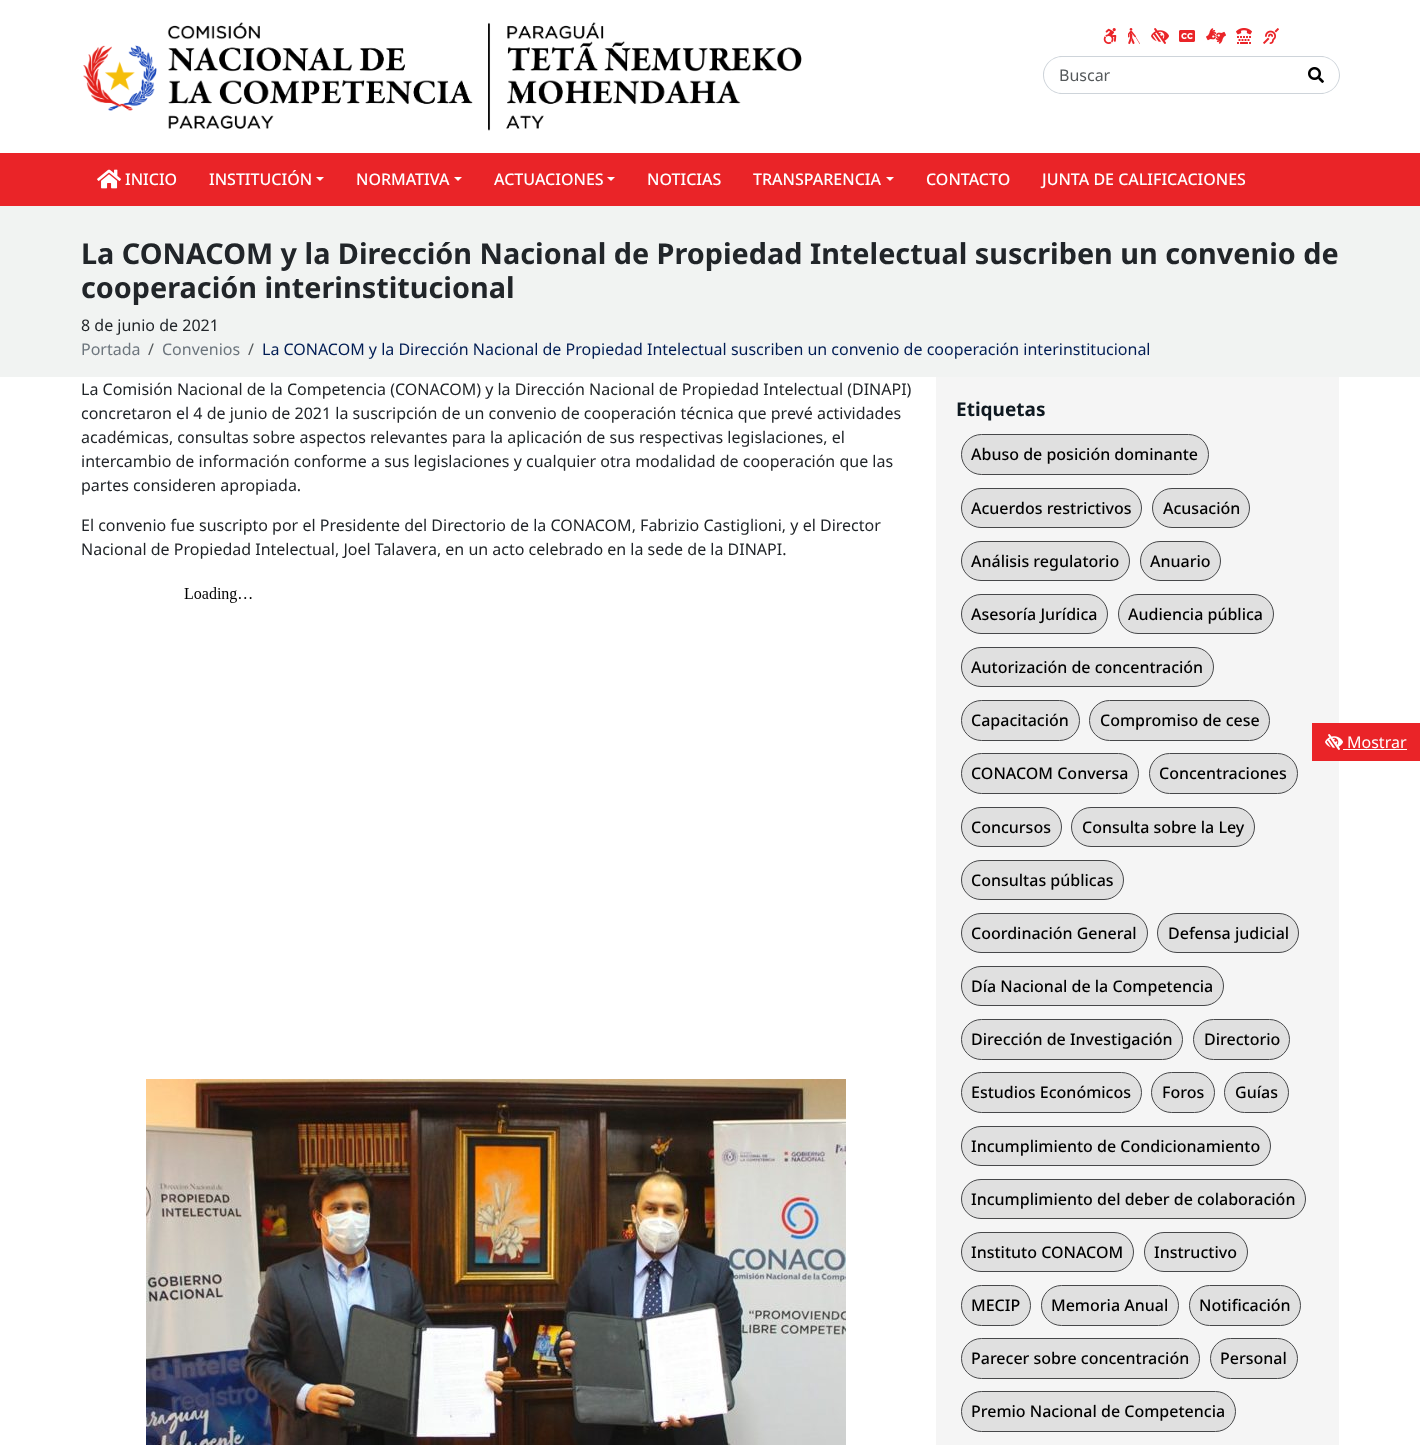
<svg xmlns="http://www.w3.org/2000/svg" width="1420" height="1445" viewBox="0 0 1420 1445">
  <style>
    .t1 { font: 16px Noto Sans; fill: #55595b; }
    .t2 { font: 500 16px Noto Sans; fill: #fff; }
    .t3 { font: bold 28.8px Noto Sans; fill: #212529; }
    .t4 { font: 16px Noto Sans; fill: #212529; }
    .t5 { font: 16px Noto Sans; fill: #6c757d; }
    .t6 { font: 16px Noto Sans; fill: #001c54; }
    .t7 { font: bold 19px Noto Sans; fill: #0e1820; }
    .t8 { font: 500 16px Noto Sans; fill: #000; }
    .t9 { font: 16px Noto Sans; fill: #fff; }
  </style>
  <rect width="100%" height="100%" fill="#fff"/>
  <image x="83" y="22" width="719" height="109" href="images/1.png"/>
  <image x="1103" y="28" width="14" height="16" href="images/2.png"/>
  <image x="1128" y="28" width="12" height="16" href="images/3.png"/>
  <image x="1151" y="28" width="18" height="16" href="images/4.png"/>
  <image x="1179" y="30" width="16" height="12" href="images/5.png"/>
  <image x="1206" y="28" width="20" height="16" href="images/6.png"/>
  <image x="1236" y="28" width="16" height="16" href="images/7.png"/>
  <image x="1263" y="28" width="16" height="16" href="images/8.png"/>
  <path d="M1062 56H1294V94H1062C1052 94 1043 85 1043 75C1043 65 1052 56 1062 56ZM1062 57H1294V93H1062C1052 93 1044 85 1044 75C1044 65 1052 57 1062 57Z" fill="#ced4da" fill-rule="evenodd"/>
  <text x="1059" y="81" class="t1">Buscar</text>
  <path d="M1293 56H1321C1331 56 1340 65 1340 75C1340 85 1331 94 1321 94H1293ZM1293 57H1321C1331 57 1339 65 1339 75C1339 85 1331 93 1321 93H1293Z" fill="#ced4da" fill-rule="evenodd"/>
  <image x="1308" y="67" width="16" height="16" href="images/9.png"/>
  <rect x="0" y="153" width="1420" height="53" fill="#ea2428"/>
  <image x="97" y="169" width="24" height="20" href="images/10.png"/>
  <text x="125" y="185" class="t2">INICIO</text>
  <text x="209" y="185" class="t2">INSTITUCIÓN</text>
  <path d="M316 177H324L320 181Z" fill="#fff"/>
  <text x="356" y="185" class="t2">NORMATIVA</text>
  <path d="M454 177H462L458 181Z" fill="#fff"/>
  <text x="494" y="185" class="t2">ACTUACIONES</text>
  <path d="M607 177H615L611 181Z" fill="#fff"/>
  <text x="647" y="185" class="t2">NOTICIAS</text>
  <text x="753" y="185" class="t2">TRANSPARENCIA</text>
  <path d="M886 177H894L890 181Z" fill="#fff"/>
  <text x="926" y="185" class="t2">CONTACTO</text>
  <text x="1042" y="185" class="t2">JUNTA DE CALIFICACIONES</text>
  <rect x="0" y="206" width="1420" height="171" fill="#f1f3f2"/>
  <text x="81" y="264" class="t3">La CONACOM y la Dirección Nacional de Propiedad Intelectual suscriben un convenio de</text>
  <text x="81" y="298" class="t3">cooperación interinstitucional</text>
  <text x="81" y="331" class="t4">8 de junio de 2021</text>
  <text x="81" y="355" class="t5">Portada</text>
  <text x="148" y="355" class="t1">/</text>
  <text x="162" y="355" class="t5">Convenios</text>
  <text x="248" y="355" class="t1">/</text>
  <text x="262" y="355" class="t6">La CONACOM y la Dirección Nacional de Propiedad Intelectual suscriben un convenio de cooperación interinstitucional</text>
  <text x="81" y="395" class="t4">La Comisión Nacional de la Competencia (CONACOM) y la Dirección Nacional de Propiedad Intelectual (DINAPI)</text>
  <text x="81" y="419" class="t4">concretaron el 4 de junio de 2021 la suscripción de un convenio de cooperación técnica que prevé actividades</text>
  <text x="81" y="443" class="t4">académicas, consultas sobre aspectos relevantes para la aplicación de sus respectivas legislaciones, el</text>
  <text x="81" y="467" class="t4">intercambio de información conforme a sus legislaciones y cualquier otra modalidad de cooperación que las</text>
  <text x="81" y="491" class="t4">partes consideren apropiada.</text>
  <text x="81" y="531" class="t4">El convenio fue suscripto por el Presidente del Directorio de la CONACOM, Fabrizio Castiglioni, y el Director</text>
  <text x="81" y="555" class="t4">Nacional de Propiedad Intelectual, Joel Talavera, en un acto celebrado en la sede de la DINAPI.</text>
  <image x="184" y="587" width="68" height="16" href="images/11.png"/>
  <image x="146" y="1079" width="700" height="366" href="images/12.png"/>
  <rect x="936" y="377" width="403" height="1068" fill="#f5f5f5"/>
  <text x="956" y="416" class="t7">Etiquetas</text>
  <rect x="961.5" y="434.5" width="247" height="40" rx="20" fill="#e0e0e0" stroke="#464749"/>
  <text x="971" y="460" class="t8">Abuso de posición dominante</text>
  <rect x="961.5" y="488.5" width="180" height="39" rx="19.5" fill="#e0e0e0" stroke="#464749"/>
  <text x="971" y="514" class="t8">Acuerdos restrictivos</text>
  <rect x="1152.5" y="488.5" width="97" height="39" rx="19.5" fill="#e0e0e0" stroke="#464749"/>
  <text x="1163" y="514" class="t8">Acusación</text>
  <rect x="961.5" y="541.5" width="168" height="39" rx="19.5" fill="#e0e0e0" stroke="#464749"/>
  <text x="971" y="567" class="t8">Análisis regulatorio</text>
  <rect x="1140.5" y="541.5" width="80" height="39" rx="19.5" fill="#e0e0e0" stroke="#464749"/>
  <text x="1150" y="567" class="t8">Anuario</text>
  <rect x="961.5" y="594.5" width="146" height="39" rx="19.5" fill="#e0e0e0" stroke="#464749"/>
  <text x="971" y="620" class="t8">Asesoría Jurídica</text>
  <rect x="1118.5" y="594.5" width="155" height="39" rx="19.5" fill="#e0e0e0" stroke="#464749"/>
  <text x="1128" y="620" class="t8">Audiencia pública</text>
  <rect x="961.5" y="647.5" width="252" height="39" rx="19.5" fill="#e0e0e0" stroke="#464749"/>
  <text x="971" y="673" class="t8">Autorización de concentración</text>
  <rect x="961.5" y="700.5" width="118" height="40" rx="20" fill="#e0e0e0" stroke="#464749"/>
  <text x="971" y="726" class="t8">Capacitación</text>
  <rect x="1089.5" y="700.5" width="180" height="40" rx="20" fill="#e0e0e0" stroke="#464749"/>
  <text x="1100" y="726" class="t8">Compromiso de cese</text>
  <rect x="961.5" y="753.5" width="177" height="40" rx="20" fill="#e0e0e0" stroke="#464749"/>
  <text x="971" y="779" class="t8">CONACOM Conversa</text>
  <rect x="1149.5" y="753.5" width="148" height="40" rx="20" fill="#e0e0e0" stroke="#464749"/>
  <text x="1159" y="779" class="t8">Concentraciones</text>
  <rect x="961.5" y="807.5" width="100" height="39" rx="19.5" fill="#e0e0e0" stroke="#464749"/>
  <text x="971" y="833" class="t8">Concursos</text>
  <rect x="1071.5" y="807.5" width="183" height="39" rx="19.5" fill="#e0e0e0" stroke="#464749"/>
  <text x="1082" y="833" class="t8">Consulta sobre la Ley</text>
  <rect x="961.5" y="860.5" width="162" height="39" rx="19.5" fill="#e0e0e0" stroke="#464749"/>
  <text x="971" y="886" class="t8">Consultas públicas</text>
  <rect x="961.5" y="913.5" width="186" height="39" rx="19.5" fill="#e0e0e0" stroke="#464749"/>
  <text x="971" y="939" class="t8">Coordinación General</text>
  <rect x="1157.5" y="913.5" width="141" height="39" rx="19.5" fill="#e0e0e0" stroke="#464749"/>
  <text x="1168" y="939" class="t8">Defensa judicial</text>
  <rect x="961.5" y="966.5" width="262" height="39" rx="19.5" fill="#e0e0e0" stroke="#464749"/>
  <text x="971" y="992" class="t8">Día Nacional de la Competencia</text>
  <rect x="961.5" y="1019.5" width="221" height="40" rx="20" fill="#e0e0e0" stroke="#464749"/>
  <text x="971" y="1045" class="t8">Dirección de Investigación</text>
  <rect x="1193.5" y="1019.5" width="96" height="40" rx="20" fill="#e0e0e0" stroke="#464749"/>
  <text x="1204" y="1045" class="t8">Directorio</text>
  <rect x="961.5" y="1072.5" width="180" height="40" rx="20" fill="#e0e0e0" stroke="#464749"/>
  <text x="971" y="1098" class="t8">Estudios Económicos</text>
  <rect x="1151.5" y="1072.5" width="63" height="40" rx="20" fill="#e0e0e0" stroke="#464749"/>
  <text x="1162" y="1098" class="t8">Foros</text>
  <rect x="1224.5" y="1072.5" width="64" height="40" rx="20" fill="#e0e0e0" stroke="#464749"/>
  <text x="1235" y="1098" class="t8">Guías</text>
  <rect x="961.5" y="1126.5" width="309" height="39" rx="19.5" fill="#e0e0e0" stroke="#464749"/>
  <text x="971" y="1152" class="t8">Incumplimiento de Condicionamiento</text>
  <rect x="961.5" y="1179.5" width="344" height="39" rx="19.5" fill="#e0e0e0" stroke="#464749"/>
  <text x="971" y="1205" class="t8">Incumplimiento del deber de colaboración</text>
  <rect x="961.5" y="1232.5" width="172" height="39" rx="19.5" fill="#e0e0e0" stroke="#464749"/>
  <text x="971" y="1258" class="t8">Instituto CONACOM</text>
  <rect x="1144.5" y="1232.5" width="103" height="39" rx="19.5" fill="#e0e0e0" stroke="#464749"/>
  <text x="1154" y="1258" class="t8">Instructivo</text>
  <rect x="961.5" y="1285.5" width="69" height="40" rx="20" fill="#e0e0e0" stroke="#464749"/>
  <text x="971" y="1311" class="t8">MECIP</text>
  <rect x="1041.5" y="1285.5" width="137" height="40" rx="20" fill="#e0e0e0" stroke="#464749"/>
  <text x="1051" y="1311" class="t8">Memoria Anual</text>
  <rect x="1189.5" y="1285.5" width="111" height="40" rx="20" fill="#e0e0e0" stroke="#464749"/>
  <text x="1199" y="1311" class="t8">Notificación</text>
  <rect x="961.5" y="1338.5" width="238" height="40" rx="20" fill="#e0e0e0" stroke="#464749"/>
  <text x="971" y="1364" class="t8">Parecer sobre concentración</text>
  <rect x="1210.5" y="1338.5" width="87" height="40" rx="20" fill="#e0e0e0" stroke="#464749"/>
  <text x="1220" y="1364" class="t8">Personal</text>
  <rect x="961.5" y="1391.5" width="274" height="40" rx="20" fill="#e0e0e0" stroke="#464749"/>
  <text x="971" y="1417" class="t8">Premio Nacional de Competencia</text>
  <rect x="1312" y="723" width="108" height="38" fill="#ea2428"/>
  <image x="1325" y="734" width="18" height="16" href="images/13.png"/>
  <text x="1347" y="748" class="t9">Mostrar</text>
  <rect x="1343" y="749" width="64" height="1" fill="#fff"/>
</svg>
